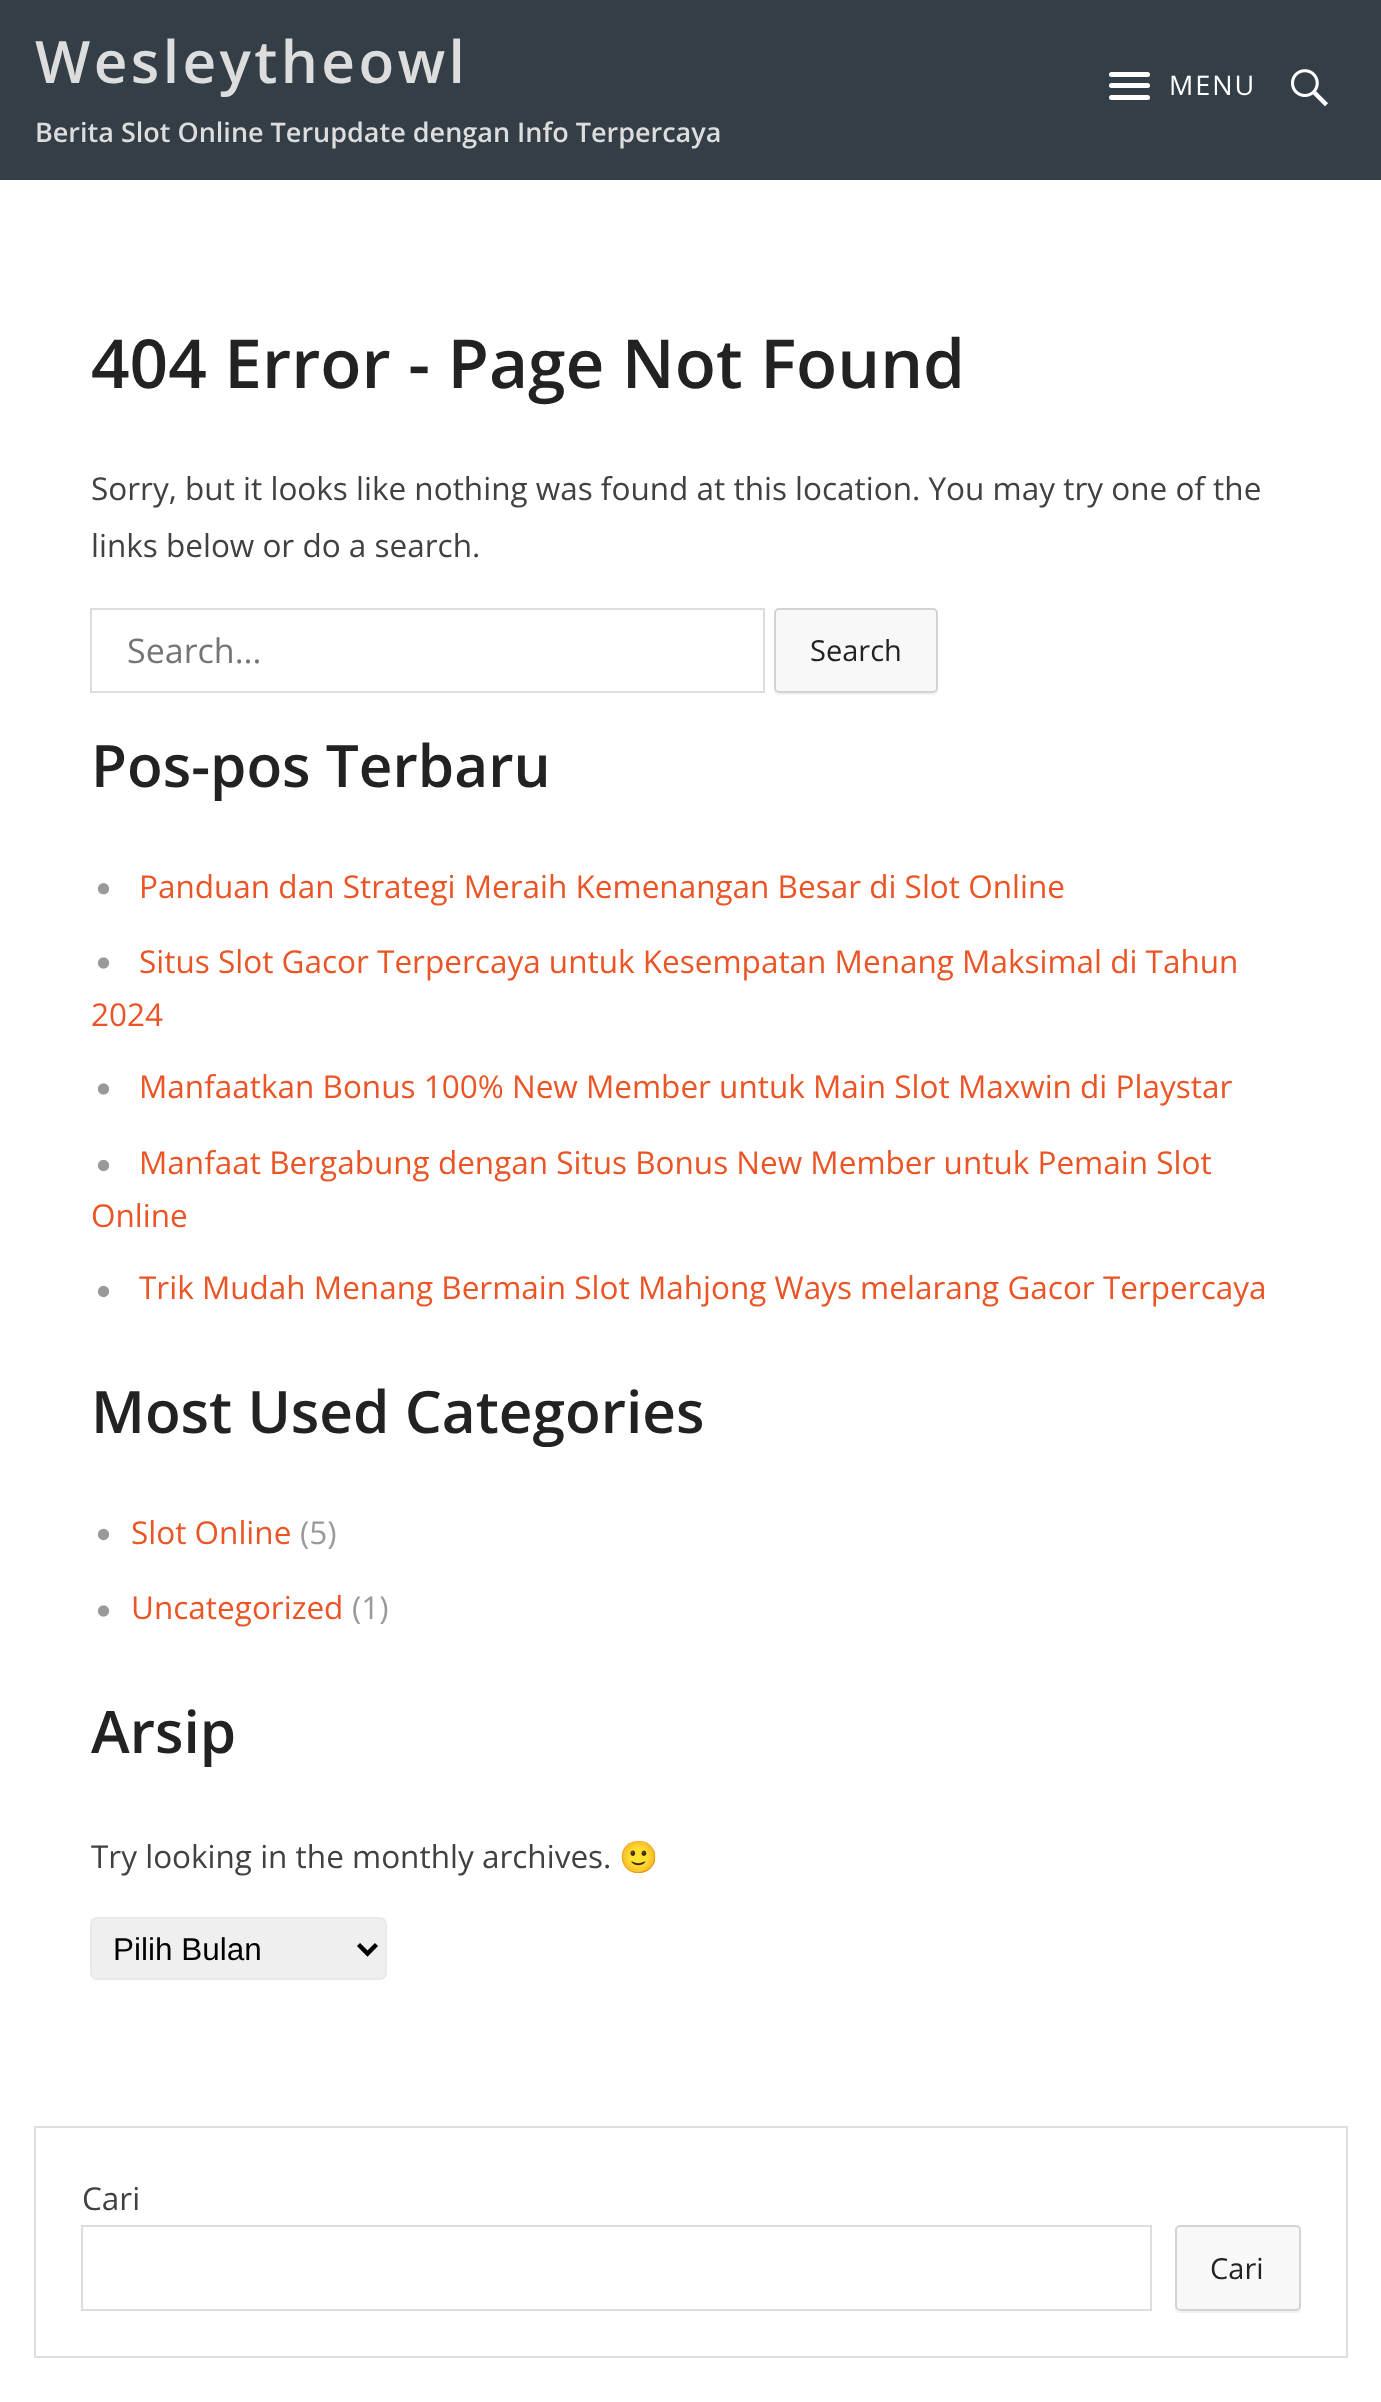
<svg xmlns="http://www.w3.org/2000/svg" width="1381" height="2402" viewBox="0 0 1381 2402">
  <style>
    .t1 { font: 600 58.5px Open Sans; letter-spacing: 3.4px; fill: #ddd; }
    .t2 { font: 600 27px Open Sans; fill: #ddd; }
    .t3 { font: 27px Open Sans; letter-spacing: 2px; fill: #fff; }
    .t4 { font: 600 67.5px Open Sans; fill: #222; }
    .t5 { font: 31.5px Open Sans; fill: #414141; }
    .t6 { font: 34px Open Sans; fill: #757575; }
    .t7 { font: 29px Open Sans; fill: #222; }
    .t8 { font: 600 58.5px Open Sans; fill: #222; }
    .t9 { font: 31.5px Open Sans; fill: #eb5424; }
    .t10 { font: 31.5px Open Sans; fill: #999; }
    .t11 { font: 31.5px Noto Color Emoji; fill: #414141; }
    .t12 { font: 31.5px Liberation Sans; fill: #000; }
  </style>
  <rect width="100%" height="100%" fill="#fff"/>
  <rect x="0" y="0" width="1381" height="180" fill="#343e47"/>
  <text x="35" y="83" class="t1">Wesleytheowl</text>
  <text x="35" y="142" class="t2">Berita Slot Online Terupdate dengan Info Terpercaya</text>
  <rect x="1109" y="72" width="41" height="5" rx="2.5" fill="#fff"/>
  <rect x="1109" y="83" width="41" height="5" rx="2.5" fill="#fff"/>
  <rect x="1109" y="95" width="41" height="5" rx="2.5" fill="#fff"/>
  <text x="1169" y="95" class="t3">MENU</text>
  <image x="1290" y="69" width="38" height="38" href="images/1.png"/>
  <text x="91" y="388" class="t4">404 Error - Page Not Found</text>
  <text x="91" y="500" class="t5">Sorry, but it looks like nothing was found at this location. You may try one of the</text>
  <text x="91" y="557" class="t5">links below or do a search.</text>
  <rect x="91" y="609" width="673" height="83" fill="none" stroke="#ddd" stroke-width="2"/>
  <text x="127" y="663" class="t6">Search...</text>
  <path d="M774 688V690C774 693 776 695 779 695H933C936 695 938 693 938 690C937 692 936 693 934 693H778C776 693 774 691 774 688Z" fill="#f2f2f2"/>
  <rect x="775" y="609" width="162" height="83" rx="4" fill="#f8f8f8" stroke="#d3d3d3" stroke-width="2"/>
  <text x="810" y="661" class="t7">Search</text>
  <text x="91" y="787" class="t8">Pos-pos Terbaru</text>
  <image x="97" y="883" width="13" height="12" href="images/2.png"/>
  <text x="139" y="898" class="t9">Panduan dan Strategi Meraih Kemenangan Besar di Slot Online</text>
  <image x="97" y="957" width="13" height="12" href="images/3.png"/>
  <text x="139" y="973" class="t9">Situs Slot Gacor Terpercaya untuk Kesempatan Menang Maksimal di Tahun</text>
  <text x="91" y="1026" class="t9">2024</text>
  <image x="97" y="1083" width="13" height="12" href="images/3.png"/>
  <text x="139" y="1098" class="t9">Manfaatkan Bonus 100% New Member untuk Main Slot Maxwin di Playstar</text>
  <image x="97" y="1159" width="13" height="13" href="images/4.png"/>
  <text x="139" y="1174" class="t9">Manfaat Bergabung dengan Situs Bonus New Member untuk Pemain Slot</text>
  <text x="91" y="1227" class="t9">Online</text>
  <image x="97" y="1285" width="13" height="13" href="images/4.png"/>
  <text x="139" y="1299" class="t9">Trik Mudah Menang Bermain Slot Mahjong Ways melarang Gacor Terpercaya</text>
  <text x="91" y="1433" class="t8">Most Used Categories</text>
  <image x="97" y="1528" width="13" height="13" href="images/4.png"/>
  <text x="131" y="1544" class="t9">Slot Online</text>
  <text x="300" y="1544" class="t10">(5)</text>
  <image x="97" y="1605" width="13" height="12" href="images/3.png"/>
  <text x="131" y="1619" class="t9">Uncategorized</text>
  <text x="352" y="1619" class="t10">(1)</text>
  <text x="91" y="1753" class="t8">Arsip</text>
  <text x="91" y="1868" class="t5">Try looking in the monthly archives.</text>
  <text x="619" y="1868" class="t11">🙂</text>
  <rect x="91" y="1918" width="295" height="61" rx="6" fill="#efefef" stroke="#e9e9e9" stroke-width="2"/>
  <path d="M358.5 1944.5L367.5 1953.5L376.5 1944.5" fill="none" stroke="#000" stroke-width="4.5"/>
  <text x="113" y="1960" class="t12">Pilih Bulan</text>
  <rect x="35" y="2127" width="1312" height="230" fill="none" stroke="#dfdfdf" stroke-width="2"/>
  <text x="82" y="2210" class="t5">Cari</text>
  <rect x="82" y="2226" width="1069" height="84" fill="none" stroke="#ddd" stroke-width="2"/>
  <path d="M1175 2308C1175 2311 1177 2313 1180 2313H1296C1299 2313 1301 2311 1301 2308V2233L1300 2231V2306C1300 2309 1298 2311 1296 2311H1179C1177 2311 1176 2310 1175 2308Z" fill="#f2f2f2"/>
  <rect x="1176" y="2226" width="124" height="84" rx="4" fill="#f8f8f8" stroke="#d3d3d3" stroke-width="2"/>
  <text x="1210" y="2279" class="t7">Cari</text>
</svg>
